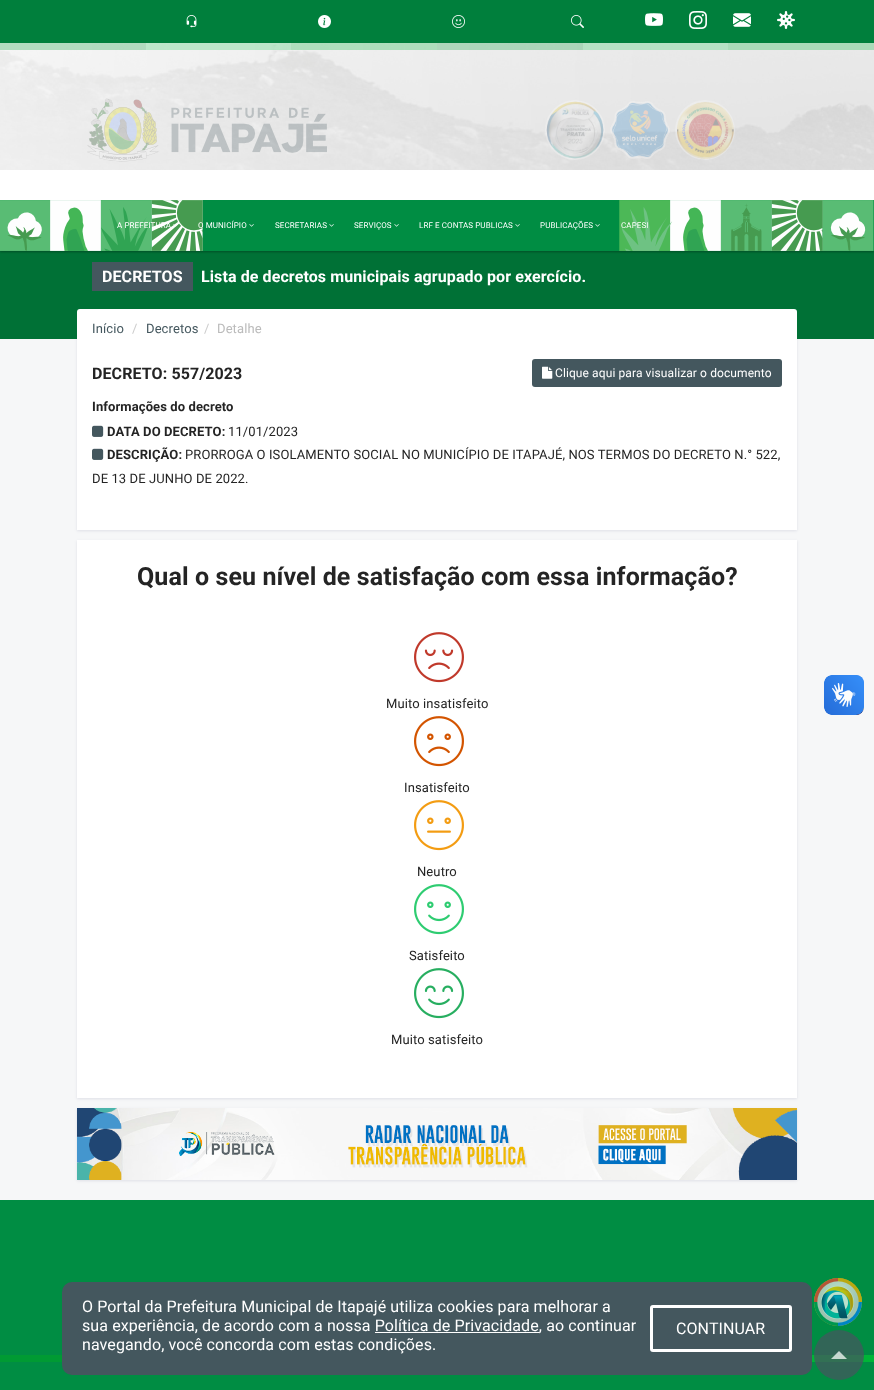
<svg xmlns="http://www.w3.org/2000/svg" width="874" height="1390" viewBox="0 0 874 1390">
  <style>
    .t1 { font: 8px Roboto; letter-spacing: 0.1px; fill: #fff; }
    .t2 { font: bold 16px Roboto; letter-spacing: 0.1px; fill: #fff; }
    .t3 { font: 13px Roboto; letter-spacing: 0.1px; fill: #44575e; }
    .t4 { font: 13px Roboto; letter-spacing: 0.1px; fill: #ccc; }
    .t5 { font: 13px Roboto; letter-spacing: 0.1px; fill: #bbb; }
    .t6 { font: bold 16px Roboto; letter-spacing: 0.1px; fill: #242424; }
    .t7 { font: 12px Roboto; letter-spacing: 0.1px; fill: #fff; }
    .t8 { font: bold 13px Roboto; letter-spacing: 0.1px; fill: #242424; }
    .t9 { font: 13px Roboto; letter-spacing: 0.1px; fill: #242424; }
    .t10 { font: bold 25px Roboto; letter-spacing: 0.1px; fill: #242424; }
    .t11 { font: 16px Roboto; letter-spacing: 0.1px; fill: #fff; }
  </style>
  <rect width="100%" height="100%" fill="#f6f7f8"/>
  <rect x="77" y="310" width="720" height="221" fill="#03004717" filter="blur(1.5px)"/>
  <rect x="0" y="251" width="874" height="88" fill="#007136"/>
  <rect x="0" y="1" width="874" height="251" fill="#0000004d" filter="blur(1px)"/>
  <image x="0" y="43" width="874" height="157" href="images/1.png"/>
  <rect x="0" y="0" width="874" height="43" fill="#007f3c"/>
  <image x="186" y="15" width="11" height="13" href="images/2.png"/>
  <image x="318" y="15" width="13" height="13" href="images/3.png"/>
  <image x="452" y="15" width="13" height="13" href="images/4.png"/>
  <image x="571" y="15" width="13" height="13" href="images/5.png"/>
  <image x="645" y="13" width="18" height="13" href="images/6.png"/>
  <image x="689" y="11" width="18" height="18" href="images/7.png"/>
  <image x="733" y="13" width="18" height="14" href="images/8.png"/>
  <image x="777" y="11" width="18" height="18" href="images/9.png"/>
  <rect x="0" y="43" width="146" height="7" fill="#009a3345"/>
  <rect x="146" y="43" width="145" height="7" fill="#2ecc6045"/>
  <rect x="291" y="43" width="146" height="7" fill="#00b53745"/>
  <rect x="437" y="43" width="146" height="7" fill="#009a3345"/>
  <rect x="583" y="43" width="145" height="7" fill="#2ecc6045"/>
  <rect x="728" y="43" width="146" height="7" fill="#aadbb9"/>
  <image x="87" y="98" width="240" height="64" href="images/10.png"/>
  <image x="545" y="100" width="60" height="60" href="images/11.png"/>
  <image x="610" y="101" width="60" height="58" href="images/12.png"/>
  <image x="675" y="100" width="60" height="60" href="images/13.png"/>
  <rect x="0" y="200" width="874" height="51" fill="#008d43"/>
  <image x="0" y="200" width="874" height="51" href="images/14.png"/>
  <text x="117" y="228" class="t1">A PREFEITURA</text>
  <image x="173" y="224" width="5" height="3" href="images/15.png"/>
  <text x="198" y="228" class="t1">O MUNICÍPIO</text>
  <image x="249" y="224" width="5" height="3" href="images/16.png"/>
  <text x="275" y="228" class="t1">SECRETARIAS</text>
  <image x="329" y="224" width="5" height="3" href="images/16.png"/>
  <text x="354" y="228" class="t1">SERVIÇOS</text>
  <image x="394" y="224" width="5" height="3" href="images/16.png"/>
  <text x="419" y="228" class="t1">LRF E CONTAS PUBLICAS</text>
  <image x="515" y="224" width="5" height="3" href="images/16.png"/>
  <text x="540" y="228" class="t1">PUBLICAÇÕES</text>
  <image x="595" y="224" width="5" height="3" href="images/16.png"/>
  <text x="621" y="228" class="t1">CAPESI</text>
  <rect x="92" y="262" width="101" height="29" fill="#44575e"/>
  <text x="102" y="282" class="t2">DECRETOS</text>
  <text x="201" y="282" class="t2">Lista de decretos municipais agrupado por exercício.</text>
  <rect x="77" y="346" width="720" height="184" fill="#fff"/>
  <rect x="77" y="309" width="720" height="40" rx="3" fill="#fff"/>
  <text x="92" y="333" class="t3">Início</text>
  <text x="132" y="333" class="t4">/</text>
  <text x="146" y="333" class="t3">Decretos</text>
  <text x="204" y="333" class="t4">/</text>
  <text x="217" y="333" class="t5">Detalhe</text>
  <text x="92" y="379" class="t6">DECRETO: 557/2023</text>
  <rect x="532" y="359" width="250" height="28" rx="3" fill="#44575e"/>
  <image x="542" y="366" width="11" height="13" href="images/17.png"/>
  <text x="555" y="377" class="t7">Clique aqui para visualizar o documento</text>
  <text x="92" y="411" class="t8">Informações do decreto</text>
  <image x="92" y="425" width="12" height="12" href="images/18.png"/>
  <text x="107" y="436" class="t8">DATA DO DECRETO:</text>
  <text x="228" y="436" class="t9">11/01/2023</text>
  <image x="92" y="448" width="12" height="12" href="images/18.png"/>
  <text x="107" y="459" class="t8">DESCRIÇÃO:</text>
  <text x="185" y="459" class="t9">PRORROGA O ISOLAMENTO SOCIAL NO MUNICÍPIO DE ITAPAJÉ, NOS TERMOS DO DECRETO N.° 522,</text>
  <text x="92" y="483" class="t9">DE 13 DE JUNHO DE 2022.</text>
  <rect x="77" y="541" width="720" height="558" fill="#03004717" filter="blur(1.5px)"/>
  <rect x="77" y="540" width="720" height="558" fill="#fff"/>
  <text x="137" y="585" class="t10">Qual o seu nível de satisfação com essa informação?</text>
  <image x="414" y="632" width="50" height="51" href="images/19.png"/>
  <text x="386" y="708" class="t9">Muito insatisfeito</text>
  <image x="414" y="716" width="50" height="51" href="images/20.png"/>
  <text x="404" y="792" class="t9">Insatisfeito</text>
  <image x="414" y="800" width="50" height="51" href="images/21.png"/>
  <text x="417" y="876" class="t9">Neutro</text>
  <image x="414" y="884" width="50" height="51" href="images/22.png"/>
  <text x="409" y="960" class="t9">Satisfeito</text>
  <image x="414" y="968" width="50" height="51" href="images/23.png"/>
  <text x="391" y="1044" class="t9">Muito satisfeito</text>
  <image x="824" y="675" width="40" height="40" href="images/24.png"/>
  <image x="824" y="675" width="40" height="40" href="images/25.png"/>
  <rect x="77" y="1109" width="720" height="72" fill="#03004717" filter="blur(1.5px)"/>
  <image x="77" y="1108" width="720" height="72" href="images/26.png"/>
  <rect x="0" y="1200" width="874" height="190" fill="#008d43"/>
  <rect x="0" y="1355" width="62" height="7" fill="#009a33"/>
  <rect x="812" y="1355" width="62" height="7" fill="#00b537"/>
  <rect x="62" y="1282" width="750" height="93" rx="10" fill="#44575e"/>
  <text x="82" y="1312" class="t11">O Portal da Prefeitura Municipal de Itapajé utiliza cookies para melhorar a</text>
  <text x="82" y="1331" class="t11">sua experiência, de acordo com a nossa Política de Privacidade, ao continuar</text>
  <rect x="375" y="1332" width="164" height="1" fill="#fff"/>
  <text x="82" y="1350" class="t11">navegando, você concorda com estas condições.</text>
  <rect x="651.5" y="1306.5" width="139" height="44" rx="1.5" fill="none" stroke="#fff" stroke-width="3"/>
  <text x="676" y="1334" class="t11">CONTINUAR</text>
  <image x="814" y="1278" width="48" height="48" href="images/27.png"/>
  <circle cx="839" cy="1355" r="25" fill="#44575eba"/>
  <path d="M847 1359H831L839 1351Z" fill="#ffffffba"/>
</svg>
